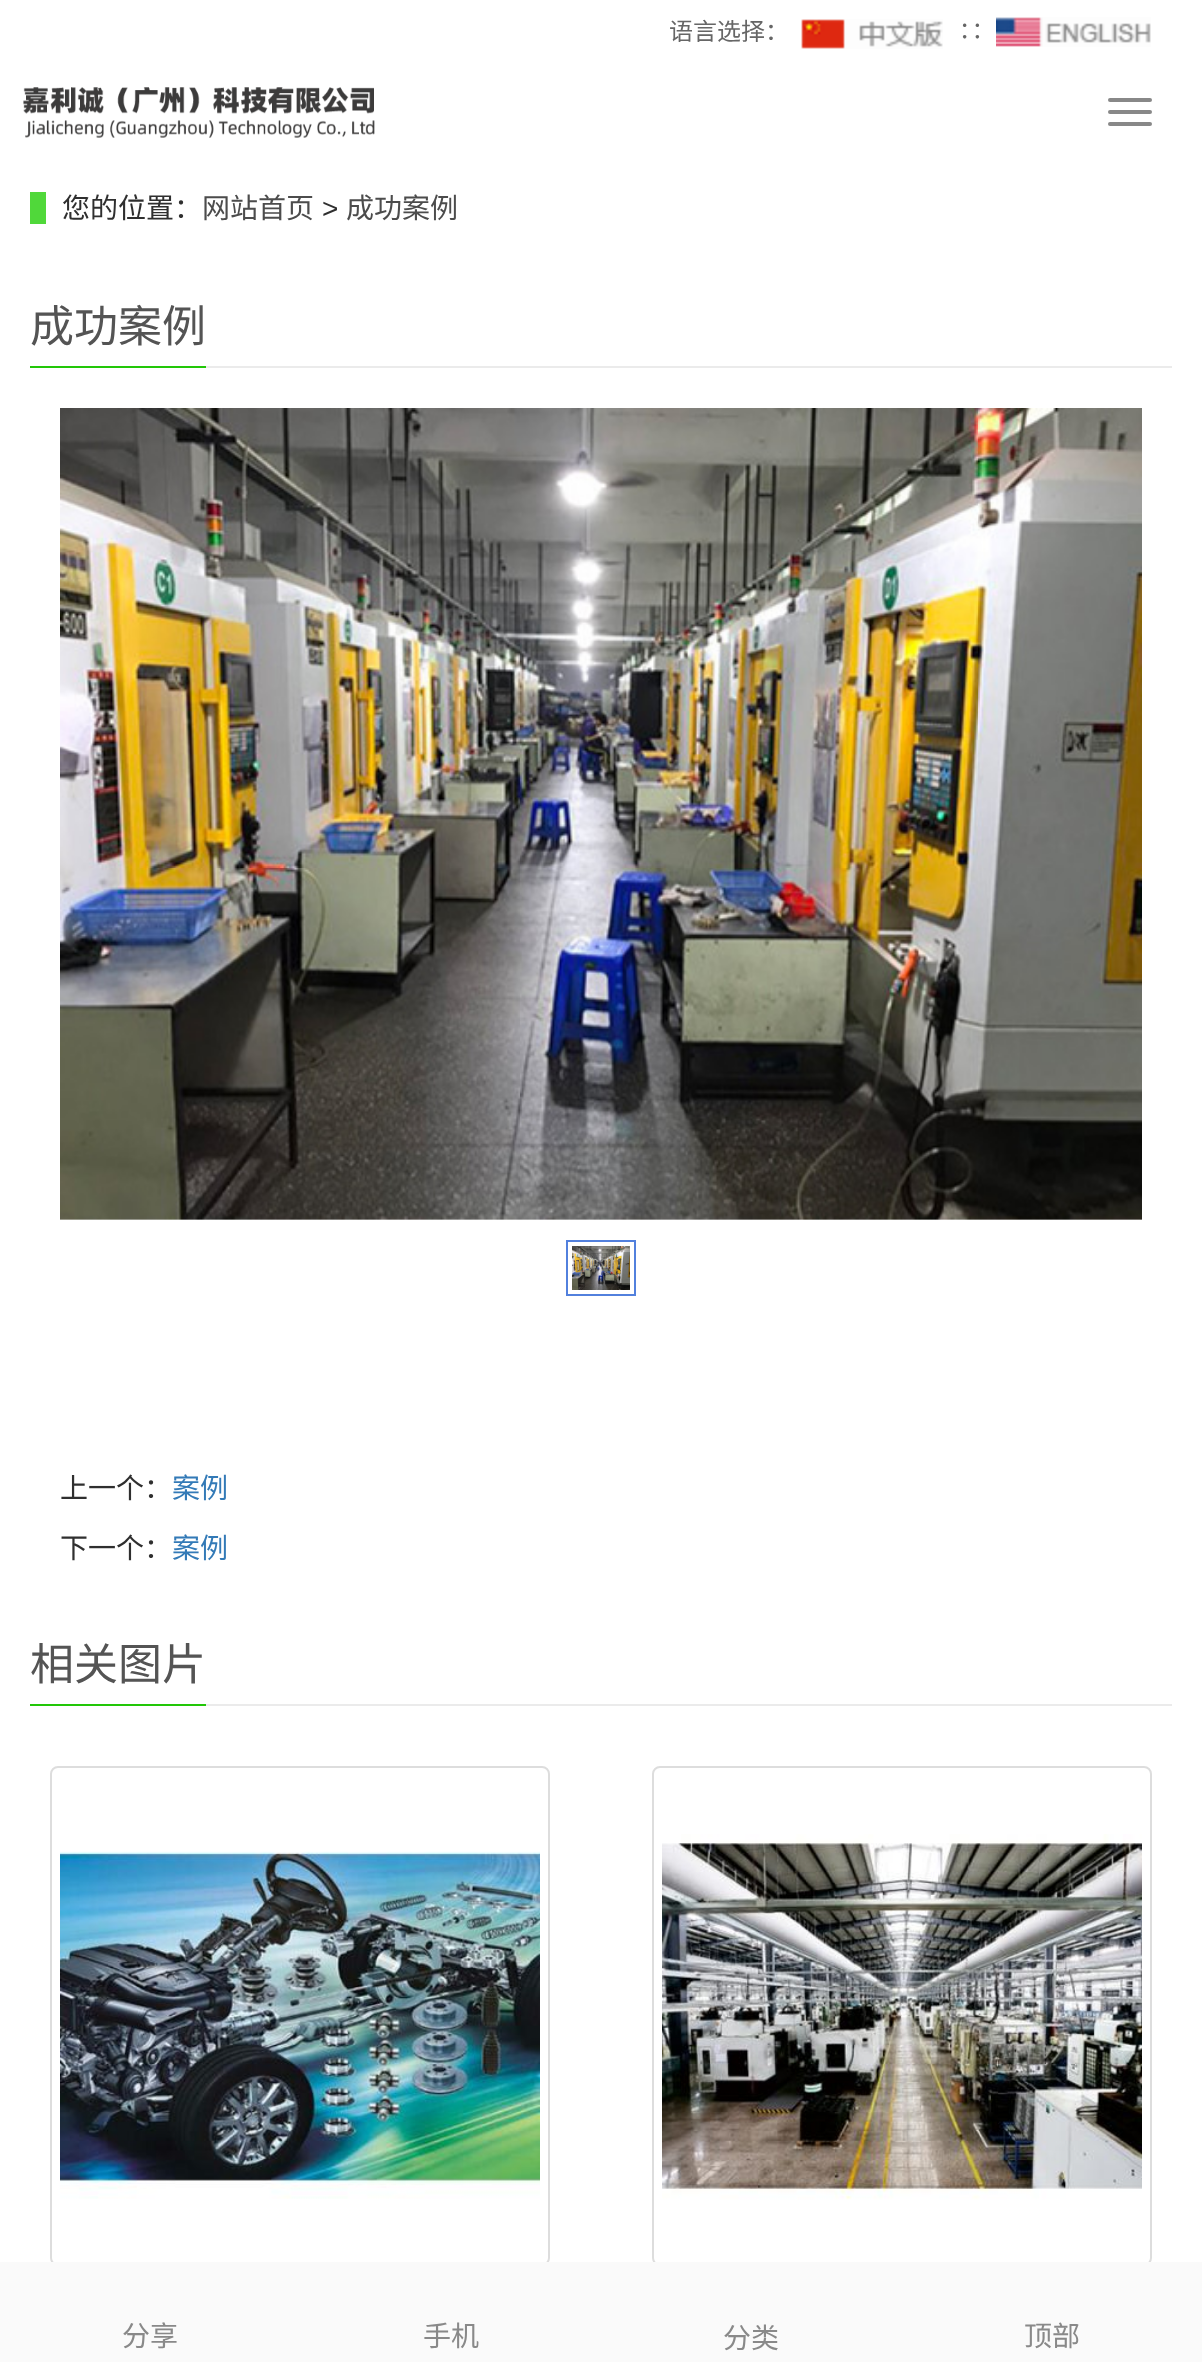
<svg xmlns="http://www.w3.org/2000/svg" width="1202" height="2362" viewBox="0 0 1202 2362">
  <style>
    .t1 { font: 24px Noto Sans CJK SC; fill: #666; }
    .t2 { font: 28px Noto Sans CJK SC; fill: #2f2f2f; }
    .t3 { font: 28px Noto Sans CJK SC; fill: #4c4c4c; }
    .t4 { font: 28px Liberation Sans; fill: #2f2f2f; }
    .t5 { font: 44px Noto Sans CJK SC; fill: #545454; }
    .t6 { font: 28px Noto Sans CJK SC; fill: #337ab7; }
    .t7 { font: 28px Noto Sans CJK SC; fill: #898989; }
  </style>
  <rect width="100%" height="100%" fill="#fff"/>
  <text x="669" y="40" class="t1">语言选择：</text>
  <image x="801" y="19" width="142" height="30" href="images/1.png"/>
  <text x="959" y="40" class="t1">∷</text>
  <image x="996" y="17" width="155" height="30" href="images/2.png"/>
  <image x="23" y="87" width="352" height="51" href="images/3.png"/>
  <rect x="1108" y="98" width="44" height="4" rx="2" fill="#888"/>
  <rect x="1108" y="110" width="44" height="4" rx="2" fill="#888"/>
  <rect x="1108" y="122" width="44" height="4" rx="2" fill="#888"/>
  <text x="62" y="218" class="t2">您的位置：</text>
  <rect x="30" y="192" width="16" height="32" fill="#50d83a"/>
  <text x="202" y="218" class="t3">网站首页</text>
  <text x="322" y="218" class="t4">&gt;</text>
  <text x="346" y="218" class="t3">成功案例</text>
  <rect x="206" y="366" width="966" height="2" fill="#ebebeb"/>
  <rect x="30" y="366" width="176" height="2" fill="#22c708"/>
  <text x="30" y="342" class="t5">成功案例</text>
  <image x="60" y="408" width="1082" height="812" href="images/4.png"/>
  <rect x="567" y="1241" width="68" height="54" fill="none" stroke="#5280dd" stroke-width="2"/>
  <image x="572" y="1246" width="58" height="44" href="images/5.png"/>
  <text x="60" y="1498" class="t2">上一个：</text>
  <text x="172" y="1498" class="t6">案例</text>
  <text x="60" y="1558" class="t2">下一个：</text>
  <text x="172" y="1558" class="t6">案例</text>
  <rect x="206" y="1704" width="966" height="2" fill="#ebebeb"/>
  <rect x="30" y="1704" width="176" height="2" fill="#22c708"/>
  <text x="30" y="1680" class="t5">相关图片</text>
  <rect x="51" y="1767" width="498" height="498" rx="7" fill="none" stroke="#ddd" stroke-width="2"/>
  <image x="60" y="1851" width="480" height="348" href="images/6.png"/>
  <rect x="653" y="1767" width="498" height="498" rx="7" fill="none" stroke="#ddd" stroke-width="2"/>
  <image x="662" y="1834" width="480" height="366" href="images/7.png"/>
  <rect x="0" y="2262" width="1202" height="100" fill="#fafafa"/>
  <text x="122" y="2346" class="t7">分享</text>
  <text x="423" y="2346" class="t7">手机</text>
  <text x="723" y="2348" class="t7">分类</text>
  <text x="1024" y="2346" class="t7">顶部</text>
</svg>
